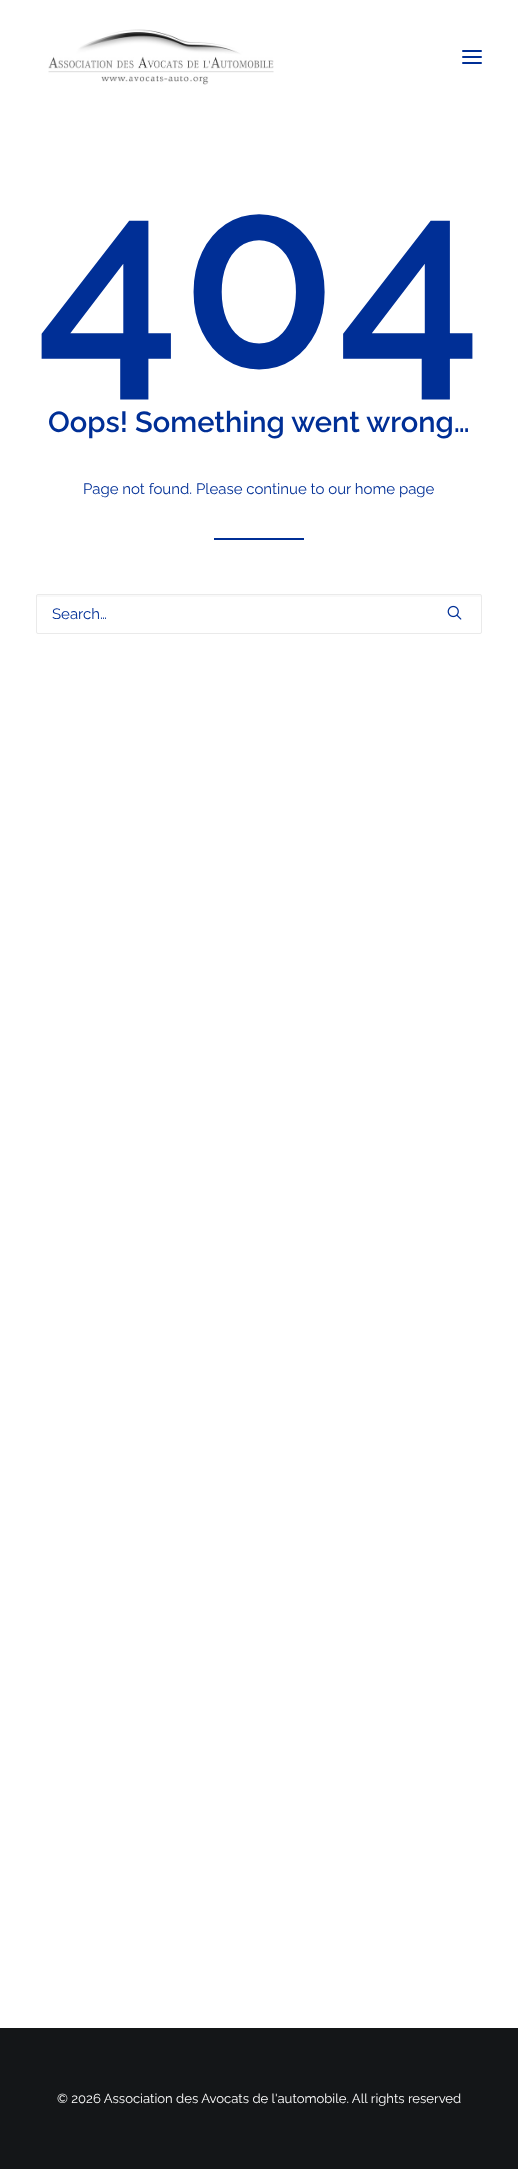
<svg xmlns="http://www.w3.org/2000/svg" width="518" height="2169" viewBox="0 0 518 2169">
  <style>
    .t1 { font: 600 256px Raleway; fill: #002f96; }
    .t2 { font: 600 29px Raleway; fill: #002f96; }
    .t3 { font: 15px Raleway; fill: #002f96; }
    .t4 { font: 13.1px Raleway; fill: #fff; }
  </style>
  <rect width="100%" height="100%" fill="#fff"/>
  <image x="48" y="29" width="226" height="56" href="images/1.png"/>
  <rect x="462" y="56" width="20" height="2" rx="1" fill="#002f96"/>
  <rect x="462" y="50" width="20" height="2" rx="1" fill="#002f96"/>
  <rect x="462" y="62" width="20" height="2" rx="1" fill="#002f96"/>
  <text x="36" y="367" class="t1">404</text>
  <text x="48" y="432" class="t2">Oops! Something went wrong…</text>
  <text x="83" y="494" class="t3">Page not found. Please continue to our home page</text>
  <rect x="214" y="538" width="90" height="2" fill="#002f96"/>
  <path d="M38 597H480H481V598V595H480H38C37 595 37 597 37 598C37 597 37 597 38 597Z" fill="#f9f9f9"/>
  <rect x="36.5" y="594.5" width="445" height="39" rx="1.5" fill="none" stroke="#eaeaea"/>
  <text x="52" y="619" class="t3">Search…</text>
  <image x="447" y="605" width="15" height="15" href="images/2.png"/>
  <rect x="0" y="2028" width="518" height="141" fill="#141618"/>
  <text x="57" y="2103" class="t4">© 2026 Association des Avocats de l'automobile. All rights reserved</text>
</svg>
